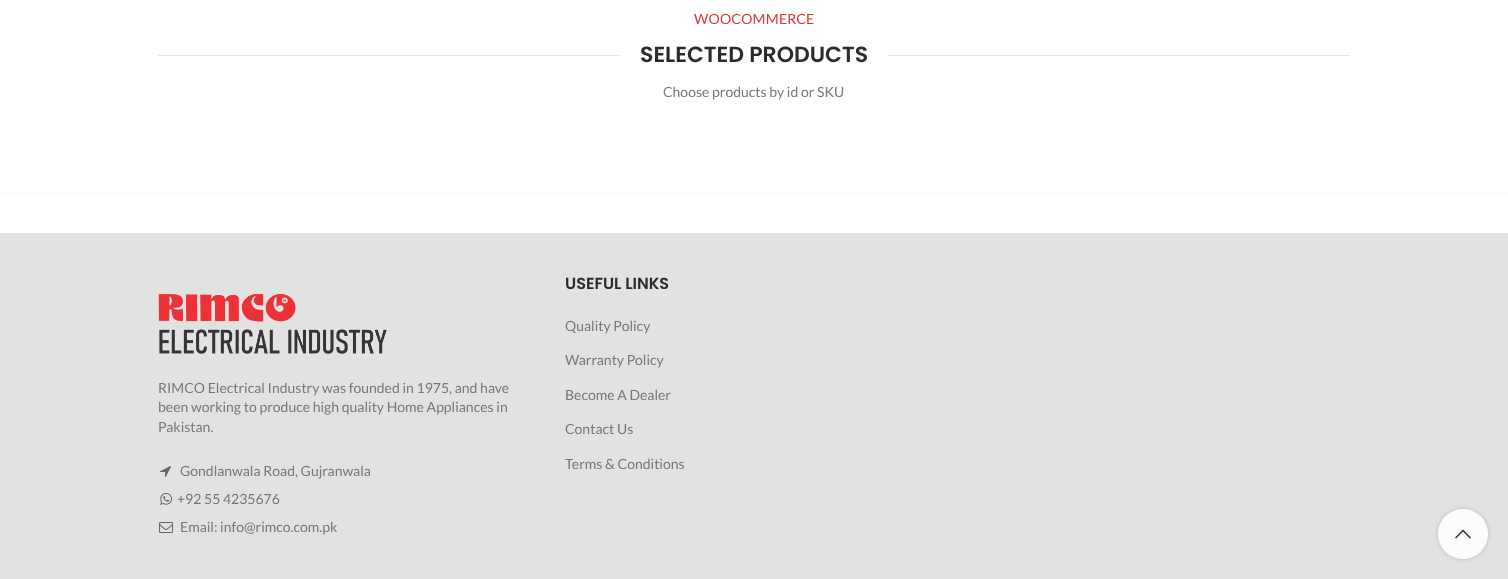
<svg xmlns="http://www.w3.org/2000/svg" width="1508" height="579" viewBox="0 0 1508 579">
  <style>
    .t1 { font: 14px Lato; letter-spacing: 0.25px; fill: #d33; }
    .t2 { font: 600 22px Poppins; fill: #2d2a2a; }
    .t3 { font: 14px Lato; fill: #777; }
    .t4 { font: 600 16px Poppins; fill: #2d2a2a; }
  </style>
  <defs>
    <clipPath id="clip1"><path d="M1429 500H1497V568H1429ZM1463 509C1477 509 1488 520 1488 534C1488 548 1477 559 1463 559C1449 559 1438 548 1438 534C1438 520 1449 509 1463 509Z" clip-rule="evenodd"/></clipPath>
  </defs>
  <rect width="100%" height="100%" fill="#fff"/>
  <text x="694" y="24" class="t1">WOOCOMMERCE</text>
  <rect x="158" y="55" width="462" height="1" fill="#e6e6e6"/>
  <text x="640" y="62" class="t2">SELECTED PRODUCTS</text>
  <rect x="888" y="55" width="462" height="1" fill="#e6e6e6"/>
  <text x="663" y="97" class="t3">Choose products by id or SKU</text>
  <rect x="0" y="193" width="1508" height="1" fill="#f9f9f9"/>
  <rect x="0" y="233" width="1508" height="346" fill="#e2e2e2"/>
  <image x="158" y="294" width="229" height="60" href="images/1.png"/>
  <text x="158" y="393" class="t3">RIMCO Electrical Industry was founded in 1975, and have</text>
  <text x="158" y="412" class="t3">been working to produce high quality Home Appliances in</text>
  <text x="158" y="432" class="t3">Pakistan.</text>
  <image x="160" y="466" width="11" height="11" href="images/2.png"/>
  <text x="180" y="476" class="t3">Gondlanwala Road, Gujranwala</text>
  <image x="160" y="493" width="12" height="12" href="images/3.png"/>
  <text x="177" y="504" class="t3">+92 55 4235676</text>
  <image x="159" y="522" width="14" height="11" href="images/4.png"/>
  <text x="180" y="532" class="t3">Email: info@rimco.com.pk</text>
  <text x="565" y="289" class="t4">USEFUL LINKS</text>
  <text x="565" y="331" class="t3">Quality Policy</text>
  <text x="565" y="365" class="t3">Warranty Policy</text>
  <text x="565" y="400" class="t3">Become A Dealer</text>
  <text x="565" y="434" class="t3">Contact Us</text>
  <text x="565" y="469" class="t3">Terms &amp; Conditions</text>
  <g clip-path="url(#clip1)">
    <rect x="1438" y="509" width="50" height="50" rx="25" fill="#0000002b" filter="blur(2.5px)"/>
  </g>
  <circle cx="1463" cy="534" r="25" fill="#ffffffe6"/>
  <image x="1455" y="529" width="16" height="10" href="images/5.png"/>
</svg>
